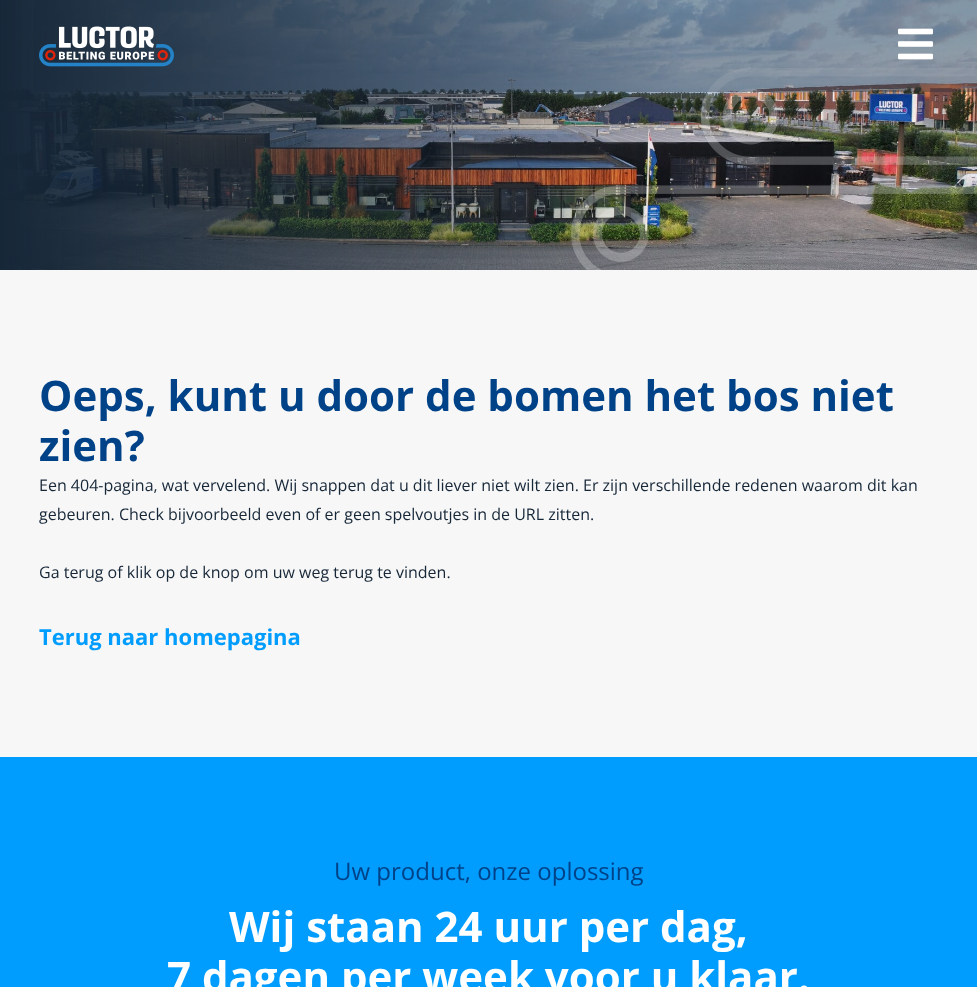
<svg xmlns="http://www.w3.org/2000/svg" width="977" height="987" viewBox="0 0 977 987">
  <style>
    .t1 { font: bold 42px Open Sans; fill: #004288; }
    .t2 { font: 16px Open Sans; fill: #162738; }
    .t3 { font: bold 22px Open Sans; fill: #009dff; }
    .t4 { font: 24px Open Sans; fill: #004288; }
    .t5 { font: bold 42px Open Sans; fill: #fff; }
  </style>
  <rect width="100%" height="100%" fill="#f7f7f7"/>
  <image x="0" y="0" width="977" height="270" href="images/1.png"/>
  <image x="571" y="68" width="406" height="202" href="images/2.png"/>
  <rect x="34" y="0" width="943" height="92" fill="#16273859"/>
  <image x="39" y="26" width="135" height="41" href="images/3.png"/>
  <image x="898" y="28" width="35" height="32" href="images/4.png"/>
  <text x="39" y="411" class="t1">Oeps, kunt u door de bomen het bos niet</text>
  <text x="39" y="461" class="t1">zien?</text>
  <text x="39" y="491" class="t2">Een 404-pagina, wat vervelend. Wij snappen dat u dit liever niet wilt zien. Er zijn verschillende redenen waarom dit kan</text>
  <text x="39" y="520" class="t2">gebeuren. Check bijvoorbeeld even of er geen spelvoutjes in de URL zitten.</text>
  <text x="39" y="578" class="t2">Ga terug of klik op de knop om uw weg terug te vinden.</text>
  <text x="39" y="645" class="t3">Terug naar homepagina</text>
  <rect x="0" y="757" width="977" height="230" fill="#009dff"/>
  <text x="334" y="880" class="t4">Uw product, onze oplossing</text>
  <text x="229" y="942" class="t5">Wij staan 24 uur per dag,</text>
  <text x="167" y="992" class="t5">7 dagen per week voor u klaar.</text>
</svg>
